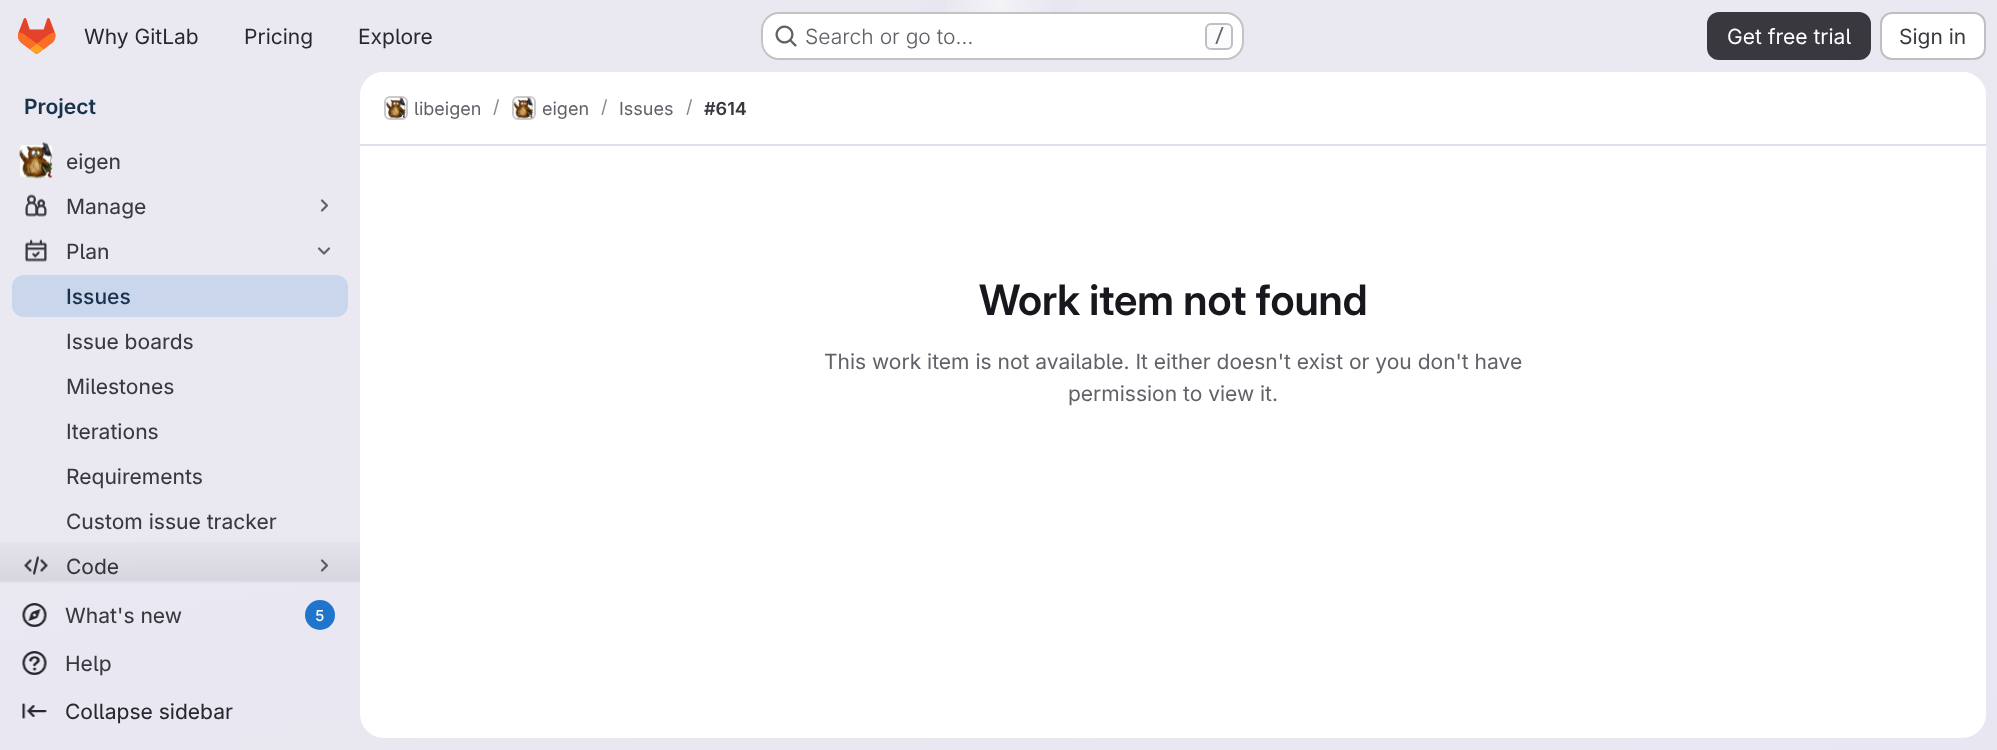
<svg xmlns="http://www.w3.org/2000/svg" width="1997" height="750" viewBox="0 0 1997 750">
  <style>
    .t1 { font: 21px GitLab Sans; fill: #28272d; }
    .t2 { font: 300 21px GitLab Sans; fill: #626168; }
    .t3 { font: 500 18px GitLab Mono; fill: #626168; }
    .t4 { font: 21px GitLab Sans; fill: #fff; }
    .t5 { font: 21px GitLab Sans; fill: #3a383f; }
    .t6 { font: 600 21px 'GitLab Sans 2'; fill: #18334e; }
    .t7 { font: 21px 'GitLab Sans 2'; fill: #3a383f; }
    .t8 { font: 500 21px GitLab Sans; fill: #18334e; }
    .t9 { font: 500 15px GitLab Sans; fill: #fff; }
    .t10 { font: 21px 'GitLab Sans 2'; fill: #28272d; }
    .t11 { font: 18px GitLab Sans; fill: #626168; }
    .t12 { font: 18px GitLab Sans; fill: #89888d; }
    .t13 { font: 600 18px 'GitLab Sans 2'; fill: #3a383f; }
    .t14 { font: 600 42px GitLab Sans; fill: #18171d; }
    .t15 { font: 21px GitLab Sans; fill: #626168; }
  </style>
  <defs>
    <linearGradient id="g1" gradientUnits="userSpaceOnUse" x1="1093" y1="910" x2="905" y2="-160"><stop offset="0" stop-color="#e8e6f0"/><stop offset="0.7" stop-color="#eae9f2"/></linearGradient>
    <radialGradient id="g2" gradientUnits="userSpaceOnUse" cx="0" cy="0" r="1" gradientTransform="matrix(999 0 0 750 999 0)"><stop offset="0" stop-color="#e4e2ed"/><stop offset="0.11" stop-color="#e4e2ed" stop-opacity="0"/></radialGradient>
    <radialGradient id="g3" gradientUnits="userSpaceOnUse" cx="0" cy="0" r="1" gradientTransform="matrix(999 0 0 750 999 0)"><stop offset="0" stop-color="#e4e2ec"/><stop offset="0.08" stop-color="#e4e2ec" stop-opacity="0"/></radialGradient>
    <radialGradient id="g4" gradientUnits="userSpaceOnUse" cx="999" cy="0" r="1249"><stop offset="0" stop-color="#fff" stop-opacity="0.6"/><stop offset="0.05" stop-color="#fff" stop-opacity="0"/></radialGradient>
    <linearGradient id="g5" gradientUnits="userSpaceOnUse" x1="180" y1="527" x2="180" y2="581"><stop offset="0" stop-color="#050506" stop-opacity="0"/><stop offset="1" stop-color="#050506" stop-opacity="0.08"/></linearGradient>
  </defs>
  <rect width="100%" height="100%" fill="#fff"/>
  <rect x="0" y="0" width="1997" height="750" fill="url(#g1)"/>
  <rect x="920" y="0" width="158" height="59" fill="url(#g2)"/>
  <rect x="979" y="3" width="40" height="4" fill="url(#g3)"/>
  <rect x="946" y="0" width="106" height="12" fill="url(#g4)"/>
  <image x="18" y="18" width="38" height="36" href="images/1.png"/>
  <text x="84" y="44" class="t1">Why GitLab</text>
  <text x="244" y="44" class="t1">Pricing</text>
  <text x="358" y="44" class="t1">Explore</text>
  <rect x="761" y="12" width="483" height="48" rx="18" fill="#fff"/>
  <rect x="762" y="13" width="481" height="46" rx="17" fill="none" stroke="#0505063d" stroke-width="2"/>
  <image x="775" y="25" width="22" height="22" href="images/2.png"/>
  <text x="805" y="44" class="t2">Search or go to…</text>
  <rect x="1206" y="24" width="26" height="25" rx="5" fill="#fbfafd" stroke="#bfbfc3" stroke-width="2"/>
  <text x="1214" y="42" class="t3">/</text>
  <rect x="1708" y="13" width="162" height="46" rx="11" fill="#3a383f" stroke="#3a383f" stroke-width="2"/>
  <text x="1727" y="44" class="t4">Get free trial</text>
  <rect x="1881" y="13" width="104" height="46" rx="11" fill="#fff" stroke="#bfbfc3" stroke-width="2"/>
  <text x="1899" y="44" class="t5">Sign in</text>
  <text x="24" y="114" class="t6">Project</text>
  <rect x="0" y="581" width="360" height="2" fill="#e1dfec"/>
  <rect x="18" y="143" width="36" height="36" rx="6" fill="#fff"/>
  <image x="19" y="142" width="34" height="37" href="images/3.png"/>
  <rect x="19" y="144" width="34" height="34" rx="5" fill="none" stroke="#05050614" stroke-width="2"/>
  <text x="66" y="169" class="t7">eigen</text>
  <image x="25" y="194" width="22" height="23" href="images/4.png"/>
  <text x="66" y="214" class="t7">Manage</text>
  <path d="M322 200.5L327 205.5L322 210.5" fill="none" stroke="#626168" stroke-width="2.2" stroke-linecap="round" stroke-linejoin="round"/>
  <image x="25" y="239" width="22" height="23" href="images/5.png"/>
  <text x="66" y="259" class="t7">Plan</text>
  <path d="M329 248.5L324 253.5L319 248.5" fill="none" stroke="#626168" stroke-width="2.2" stroke-linecap="round" stroke-linejoin="round"/>
  <rect x="12" y="275" width="336" height="42" rx="12" fill="#cad6eb"/>
  <text x="66" y="304" class="t8">Issues</text>
  <text x="66" y="349" class="t7">Issue boards</text>
  <text x="66" y="394" class="t7">Milestones</text>
  <text x="66" y="439" class="t7">Iterations</text>
  <text x="66" y="484" class="t7">Requirements</text>
  <text x="66" y="529" class="t7">Custom issue tracker</text>
  <image x="24" y="556" width="24" height="19" href="images/6.png"/>
  <text x="66" y="574" class="t7">Code</text>
  <path d="M322 560.5L327 565.5L322 570.5" fill="none" stroke="#626168" stroke-width="2.2" stroke-linecap="round" stroke-linejoin="round"/>
  <rect x="0" y="542" width="360" height="39" fill="url(#g5)"/>
  <image x="22" y="603" width="25" height="24" href="images/7.png"/>
  <text x="65" y="623" class="t7">What's new</text>
  <circle cx="320" cy="615" r="15" fill="#1f75cb"/>
  <text x="315" y="621" class="t9">5</text>
  <image x="22" y="651" width="25" height="24" href="images/8.png"/>
  <text x="65" y="671" class="t7">Help</text>
  <image x="22" y="703" width="25" height="16" href="images/9.png"/>
  <text x="65" y="719" class="t10">Collapse sidebar</text>
  <rect x="360" y="72" width="1626" height="666" rx="24" fill="#fff"/>
  <path d="M384 72H1962C1975.5 72 1986 82.5 1986 96V146H360V96C360 82.5 370.5 72 384 72Z" fill="#fff"/>
  <rect x="360" y="144" width="1626" height="2" fill="#e1dfec"/>
  <rect x="385" y="97" width="22" height="22" rx="5" fill="none" stroke="#dcdcde" stroke-width="2"/>
  <image x="386" y="97" width="20" height="22" href="images/10.png"/>
  <rect x="385" y="97" width="22" height="22" rx="5" fill="none" stroke="#05050614" stroke-width="2"/>
  <text x="414" y="115" class="t11">libeigen</text>
  <text x="493" y="113" class="t12">/</text>
  <rect x="513" y="97" width="22" height="22" rx="5" fill="none" stroke="#dcdcde" stroke-width="2"/>
  <image x="513" y="97" width="21" height="22" href="images/11.png"/>
  <rect x="513" y="97" width="22" height="22" rx="5" fill="none" stroke="#05050614" stroke-width="2"/>
  <text x="542" y="115" class="t11">eigen</text>
  <text x="601" y="113" class="t12">/</text>
  <text x="619" y="115" class="t11">Issues</text>
  <text x="686" y="113" class="t12">/</text>
  <text x="704" y="115" class="t13">#614</text>
  <text x="979" y="315" class="t14">Work item not found</text>
  <text x="824" y="369" class="t15">This work item is not available. It either doesn't exist or you don't have</text>
  <text x="1068" y="401" class="t15">permission to view it.</text>
</svg>
